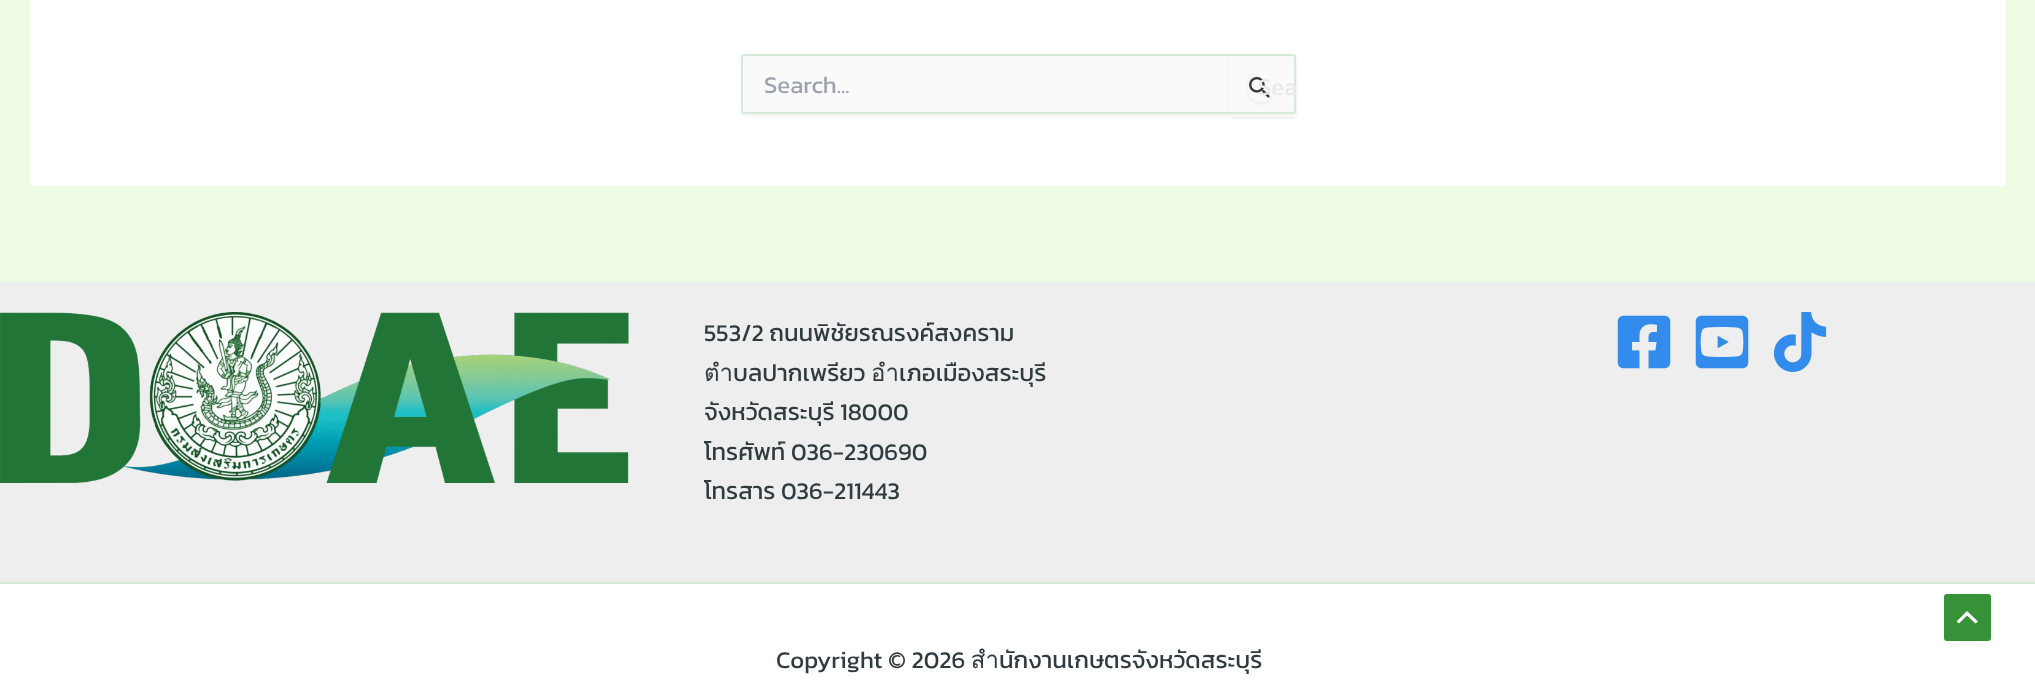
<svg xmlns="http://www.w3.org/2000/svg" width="2035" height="685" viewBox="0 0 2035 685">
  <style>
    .t1 { font: 24px Kanit; fill: #9ca3af; }
    .t2 { font: 24px Kanit; fill: #e7e9e8; }
    .t3 { font: 24px Kanit; fill: #2f3b40; }
  </style>
  <defs>
    <clipPath id="clip1"><path d="M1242 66H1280V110H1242ZM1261 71C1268 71 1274 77 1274 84V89C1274 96 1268 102 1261 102C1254 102 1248 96 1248 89V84C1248 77 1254 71 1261 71Z" clip-rule="evenodd"/></clipPath>
    <clipPath id="clip2"><path d="M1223 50H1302V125H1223ZM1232 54H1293C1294.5 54 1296 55.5 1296 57V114C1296 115.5 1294.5 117 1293 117H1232C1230.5 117 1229 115.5 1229 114V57C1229 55.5 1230.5 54 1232 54Z" clip-rule="evenodd"/></clipPath>
  </defs>
  <rect width="100%" height="100%" fill="#edfbe2"/>
  <rect x="30" y="0" width="1976" height="186" fill="#fff"/>
  <rect x="741" y="56" width="555" height="60" rx="3" fill="#0000000d" filter="blur(1.5px)"/>
  <rect x="742" y="55" width="553" height="58" rx="2" fill="#fafafa" stroke="#d5ead8" stroke-width="2"/>
  <text x="764" y="93" class="t1">Search...</text>
  <g clip-path="url(#clip1)">
    <rect x="1248" y="72" width="26" height="32" rx="13" fill="#0000000d" filter="blur(1.5px)"/>
  </g>
  <image x="1249" y="77" width="21" height="21" href="images/1.png"/>
  <g clip-path="url(#clip2)">
    <rect x="1229" y="56" width="67" height="63" rx="3" fill="#0000000d" filter="blur(1.5px)"/>
  </g>
  <text x="1258" y="95" class="t2">Sea</text>
  <rect x="0" y="282" width="2035" height="300" fill="#eee"/>
  <image x="0" y="312" width="629" height="171" href="images/2.png"/>
  <text x="704" y="341" class="t3">553/2 ถนนพิชัยรณรงค์สงคราม</text>
  <text x="704" y="381" class="t3">ตำบลปากเพรียว อำเภอเมืองสระบุรี</text>
  <text x="704" y="420" class="t3">จังหวัดสระบุรี 18000</text>
  <text x="704" y="460" class="t3">โทรศัพท์ 036-230690</text>
  <text x="704" y="499" class="t3">โทรสาร 036-211443</text>
  <image x="1617" y="315" width="54" height="54" href="images/3.png"/>
  <image x="1695" y="315" width="54" height="54" href="images/4.png"/>
  <image x="1774" y="312" width="53" height="60" href="images/5.png"/>
  <rect x="0" y="584" width="2035" height="101" fill="#fff"/>
  <rect x="0" y="582" width="2035" height="2" fill="#d5ead8"/>
  <text x="776" y="668" class="t3">Copyright © 2026 สำนักงานเกษตรจังหวัดสระบุรี</text>
  <rect x="1944" y="594" width="47" height="47" rx="3" fill="#379237"/>
  <path d="M1978 621.5L1967 611L1956.5 621.5L1959 623.5L1967 615.5L1975.5 623.5Z" fill="#fff"/>
</svg>
